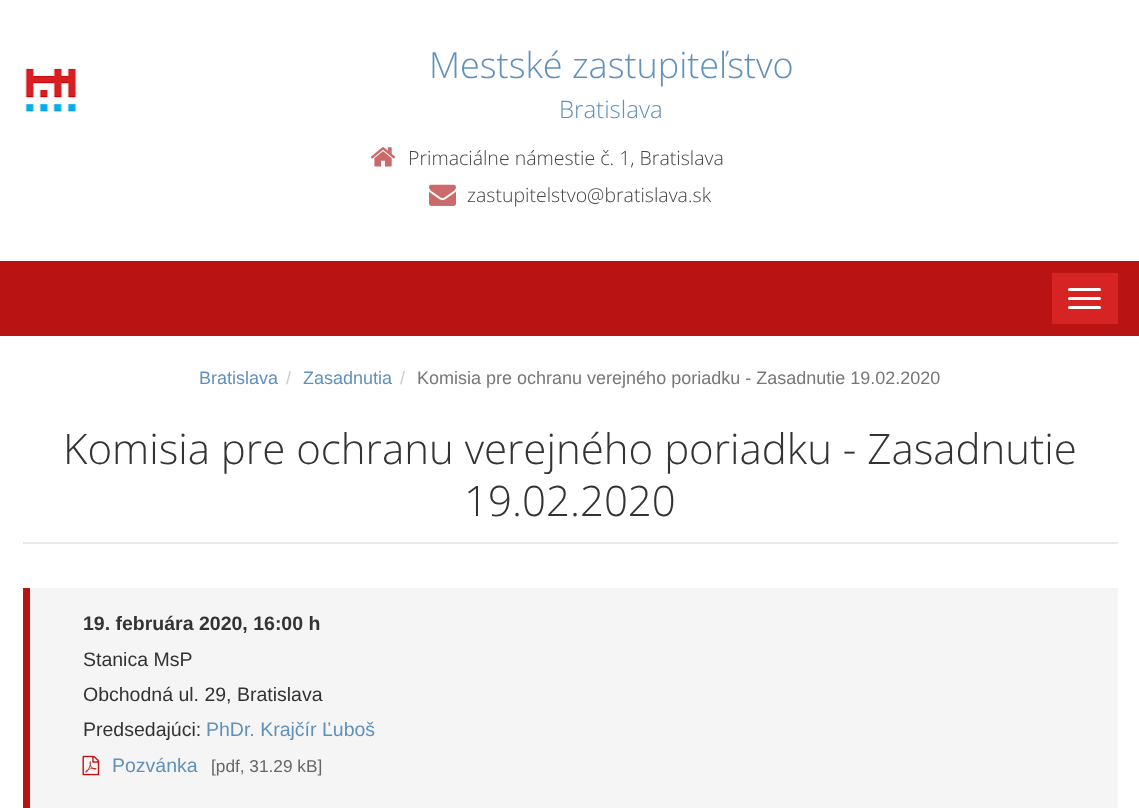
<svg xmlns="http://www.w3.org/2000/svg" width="1139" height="808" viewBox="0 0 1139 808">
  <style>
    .t1 { font: 300 36px Open Sans; fill: #6091ba; }
    .t2 { font: 300 24px Open Sans; fill: #6091ba; }
    .t3 { font: 300 19.5px Open Sans; fill: #444; }
    .t4 { font: 18px Liberation Sans; fill: #6091ba; }
    .t5 { font: 18px Liberation Sans; fill: #ccc; }
    .t6 { font: 18px Liberation Sans; fill: #777; }
    .t7 { font: 300 42px Open Sans; fill: #333; }
    .t8 { font: bold 19.5px Liberation Sans; fill: #333; }
    .t9 { font: 19.5px Liberation Sans; fill: #333; }
    .t10 { font: 19.5px Liberation Sans; fill: #6091ba; }
    .t11 { font: 17.25px Liberation Sans; fill: #666; }
  </style>
  <rect width="100%" height="100%" fill="#fff"/>
  <image x="24" y="68" width="53" height="45" href="images/1.png"/>
  <text x="429" y="78" class="t1">Mestské zastupiteľstvo</text>
  <text x="559" y="118" class="t2">Bratislava</text>
  <image x="371" y="147" width="25" height="20" href="images/2.png"/>
  <text x="408" y="165" class="t3">Primaciálne námestie č. 1, Bratislava</text>
  <image x="429" y="184" width="27" height="22" href="images/3.png"/>
  <text x="467" y="202" class="t3">zastupitelstvo@bratislava.sk</text>
  <rect x="0" y="261" width="1139" height="75" fill="#b91313"/>
  <rect x="1052" y="273" width="66" height="51" fill="#d62323"/>
  <rect x="1068" y="288" width="33" height="3" rx="1.5" fill="#fff"/>
  <rect x="1068" y="297" width="33" height="3" rx="1.5" fill="#fff"/>
  <rect x="1068" y="306" width="33" height="3" rx="1.5" fill="#fff"/>
  <text x="199" y="384" class="t4">Bratislava</text>
  <text x="286" y="384" class="t5">/</text>
  <text x="303" y="384" class="t4">Zasadnutia</text>
  <text x="400" y="384" class="t5">/</text>
  <text x="417" y="384" class="t6">Komisia pre ochranu verejného poriadku - Zasadnutie 19.02.2020</text>
  <rect x="23" y="542" width="1095" height="2" fill="#e8e8e8"/>
  <text x="63" y="464" class="t7">Komisia pre ochranu verejného poriadku - Zasadnutie</text>
  <text x="464" y="516" class="t7">19.02.2020</text>
  <rect x="30" y="588" width="1088" height="220" fill="#f5f5f5"/>
  <rect x="23" y="588" width="7" height="220" fill="#b91313"/>
  <text x="83" y="630" class="t8">19. februára 2020, 16:00 h</text>
  <text x="83" y="666" class="t9">Stanica MsP</text>
  <text x="83" y="701" class="t9">Obchodná ul. 29, Bratislava</text>
  <text x="83" y="736" class="t9">Predsedajúci:</text>
  <text x="206" y="736" class="t10">PhDr. Krajčír Ľuboš</text>
  <image x="82" y="755" width="18" height="21" href="images/4.png"/>
  <text x="112" y="772" class="t10">Pozvánka</text>
  <text x="211" y="772" class="t11">[pdf, 31.29 kB]</text>
</svg>
